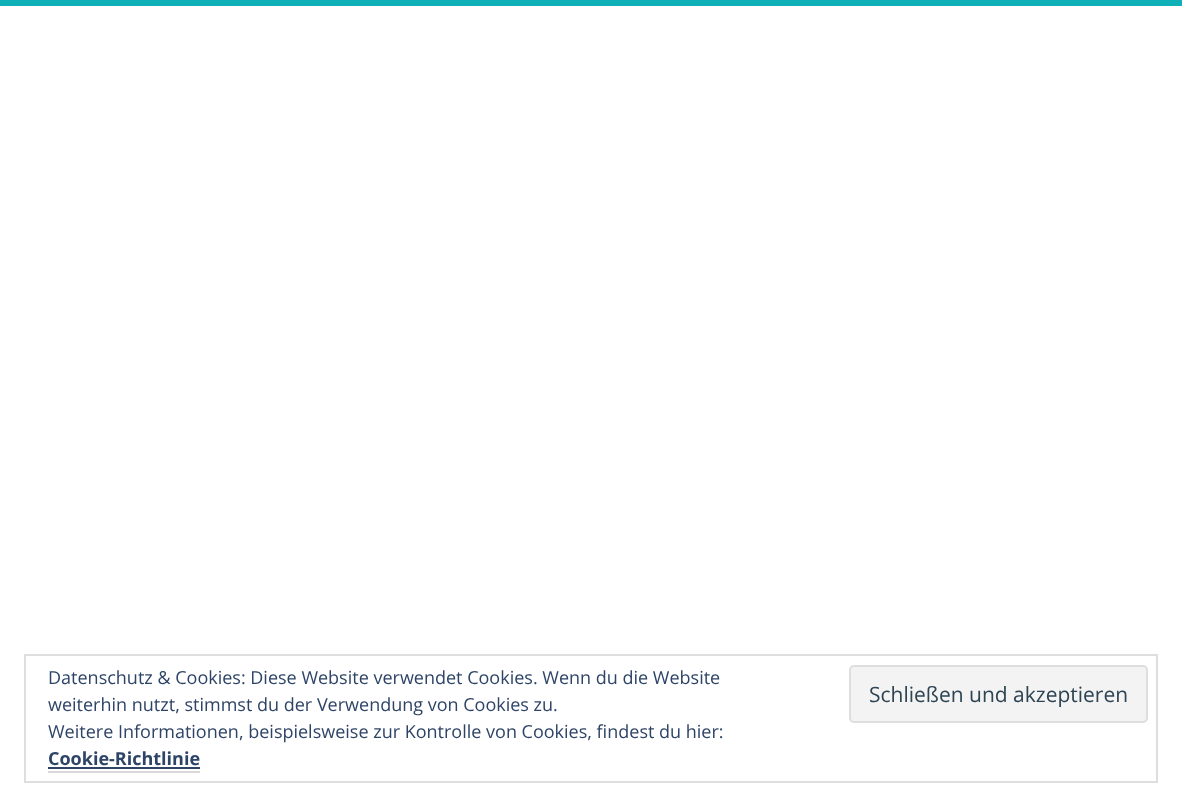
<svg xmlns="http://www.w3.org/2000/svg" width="1182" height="806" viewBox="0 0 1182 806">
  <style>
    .t1 { font: 18px Open Sans; fill: #2e4467; }
    .t2 { font: 21px Open Sans; fill: #2e4453; }
    .t3 { font: bold 18px Open Sans; fill: #2e4467; }
  </style>
  <rect width="100%" height="100%" fill="#fff"/>
  <rect x="0" y="0" width="1182" height="6" fill="#10b0b8"/>
  <rect x="25" y="655" width="1132" height="127" fill="none" stroke="#dedede" stroke-width="2"/>
  <text x="48" y="684" class="t1">Datenschutz &amp; Cookies: Diese Website verwendet Cookies. Wenn du die Website</text>
  <text x="48" y="711" class="t1">weiterhin nutzt, stimmst du der Verwendung von Cookies zu.</text>
  <rect x="850" y="666" width="297" height="56" rx="4" fill="#f3f3f3" stroke="#dedede" stroke-width="2"/>
  <text x="869" y="702" class="t2">Schließen und akzeptieren</text>
  <text x="48" y="738" class="t1">Weitere Informationen, beispielsweise zur Kontrolle von Cookies, findest du hier:</text>
  <text x="48" y="765" class="t3">Cookie-Richtlinie</text>
  <rect x="48" y="771" width="152" height="2" fill="#d9d9d9"/>
  <rect x="48" y="767" width="152" height="2" fill="#2e4467"/>
</svg>
